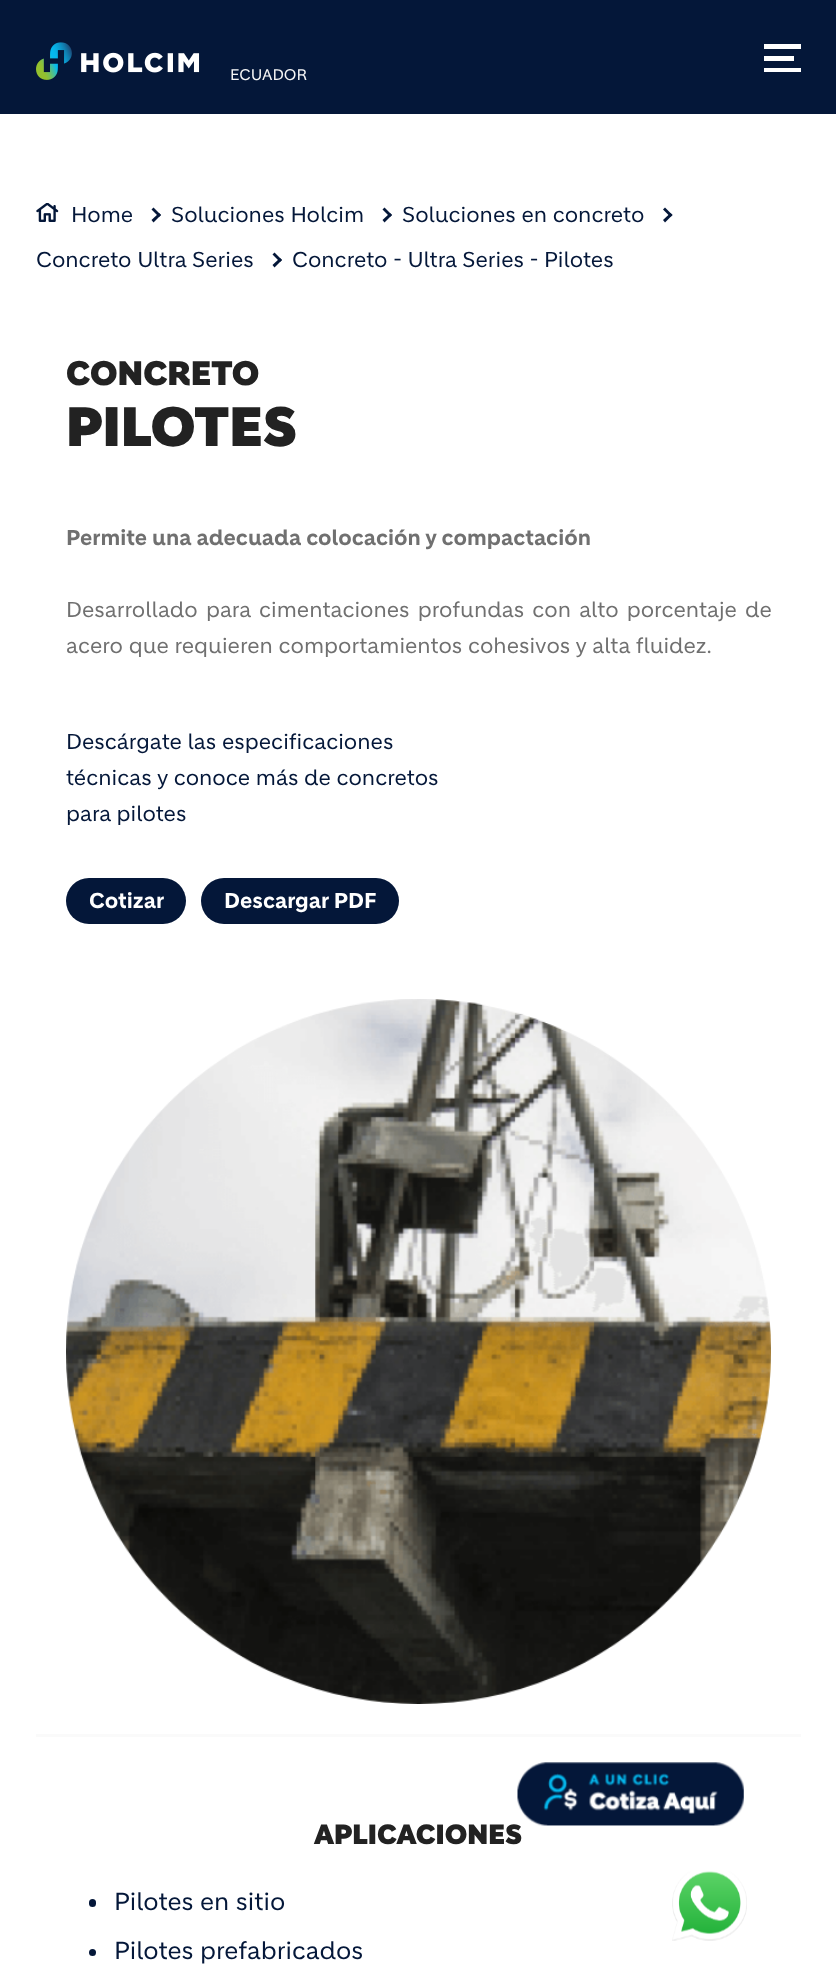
<svg xmlns="http://www.w3.org/2000/svg" width="836" height="1978" viewBox="0 0 836 1978">
  <style>
    .t1 { font: 15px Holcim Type; fill: #f6f6f6; }
    .t2 { font: 21px Holcim Type; fill: #041739; }
    .t3 { font: 900 33px Holcim Type; fill: #222; }
    .t4 { font: 900 54px Holcim Type; fill: #222; }
    .t5 { font: bold 21px Holcim Type; fill: #707070; }
    .t6 { font: 21px Holcim Type; fill: #707070; }
    .t7 { font: bold 21px Holcim Type; fill: #fff; }
    .t8 { font: 900 27px Holcim Type; fill: #222; }
    .t9 { font: 24px Holcim Type; fill: #041739; }
  </style>
  <rect width="100%" height="100%" fill="#fff"/>
  <rect x="0" y="0" width="836" height="114" fill="#041739"/>
  <rect x="764" y="44" width="37" height="5" fill="#fff"/>
  <rect x="764" y="56" width="30" height="5" fill="#fff"/>
  <rect x="764" y="68" width="37" height="4" fill="#fff"/>
  <image x="36" y="42" width="164" height="38" href="images/1.png"/>
  <text x="230" y="80" class="t1">ECUADOR</text>
  <image x="36" y="203" width="23" height="19" href="images/2.png"/>
  <text x="71" y="222" class="t2">Home</text>
  <path d="M159 217L151.5 209.5L153.5 207.5L161 215Z" fill="#041739"/>
  <path d="M153.5 222.5L151.5 220L159 213L161 215Z" fill="#041739"/>
  <text x="171" y="222" class="t2">Soluciones Holcim</text>
  <path d="M390 217L382.5 209.5L384.5 207.5L392 215Z" fill="#041739"/>
  <path d="M384.5 222.5L382.5 220L390 213L392 215Z" fill="#041739"/>
  <text x="402" y="222" class="t2">Soluciones en concreto</text>
  <path d="M670.5 217L663 209.5L665 207.5L672.5 215Z" fill="#041739"/>
  <path d="M665 222.5L663 220L670.5 213L672.5 215Z" fill="#041739"/>
  <text x="36" y="267" class="t2">Concreto Ultra Series</text>
  <path d="M280 262L272.5 254.5L274.5 252.5L282 260Z" fill="#041739"/>
  <path d="M274.5 267.5L272.5 265L280 258L282 260Z" fill="#041739"/>
  <text x="292" y="267" class="t2">Concreto - Ultra Series - Pilotes</text>
  <text x="66" y="385" class="t3">CONCRETO</text>
  <text x="66" y="446" class="t4">PILOTES</text>
  <text x="66" y="545" class="t5">Permite una adecuada colocación y compactación</text>
  <text x="66" y="617" word-spacing="2.5" class="t6">Desarrollado para cimentaciones profundas con alto porcentaje de</text>
  <text x="66" y="653" class="t6">acero que requieren comportamientos cohesivos y alta fluidez.</text>
  <text x="66" y="749" class="t2">Descárgate las especificaciones</text>
  <text x="66" y="785" class="t2">técnicas y conoce más de concretos</text>
  <text x="66" y="821" class="t2">para pilotes</text>
  <rect x="66" y="878" width="120" height="46" rx="23" fill="#041739"/>
  <text x="89" y="908" class="t7">Cotizar</text>
  <rect x="201" y="878" width="198" height="46" rx="23" fill="#041739"/>
  <text x="224" y="908" class="t7">Descargar PDF</text>
  <image x="66" y="999" width="705" height="705" href="images/3.png"/>
  <rect x="36" y="1734" width="765" height="3" fill="#fafafa"/>
  <text x="314" y="1844" class="t8">APLICACIONES</text>
  <rect x="89" y="1899" width="7" height="8" rx="3.5" fill="#041739"/>
  <text x="114" y="1910" class="t9">Pilotes en sitio</text>
  <circle cx="92.5" cy="1952.5" r="3.5" fill="#041739"/>
  <text x="114" y="1959" class="t9">Pilotes prefabricados</text>
  <image x="517" y="1762" width="227" height="64" href="images/4.png"/>
  <image x="672" y="1871" width="75" height="70" href="images/5.png"/>
</svg>
